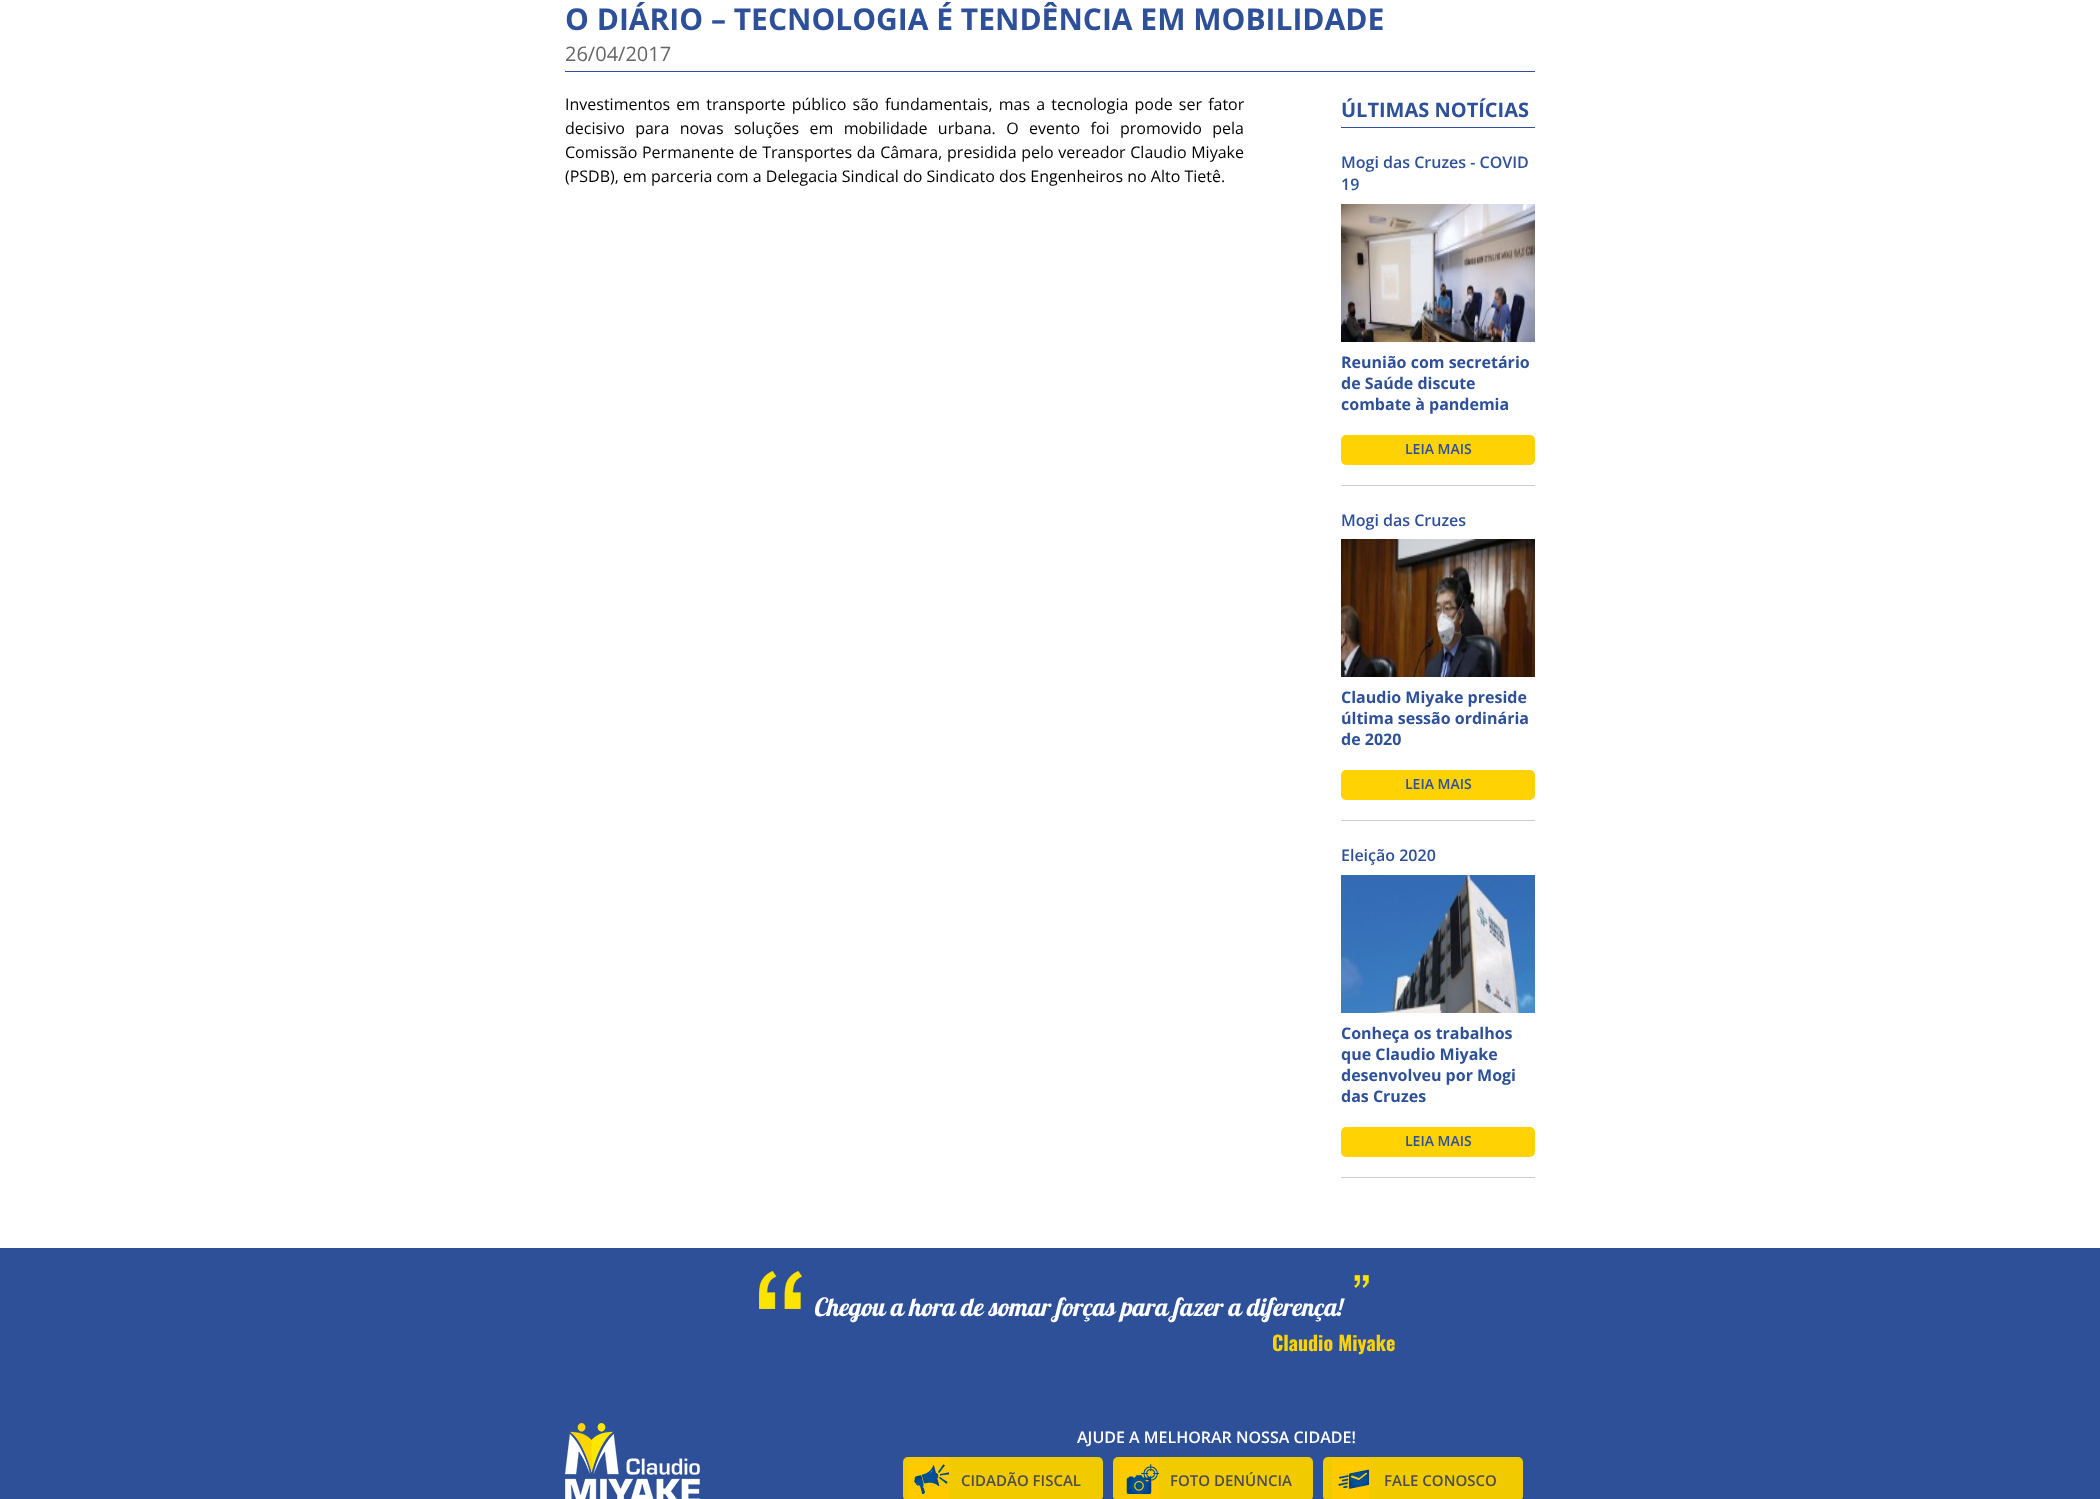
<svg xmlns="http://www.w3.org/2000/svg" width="2100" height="1499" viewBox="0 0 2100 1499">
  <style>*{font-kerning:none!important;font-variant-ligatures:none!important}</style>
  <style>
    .t1 { font: bold 30px Open Sans; fill: #2d5099; }
    .t2 { font: 20px Open Sans; fill: #666; }
    .t3 { font: 16px Open Sans; fill: #000; }
    .t4 { font: bold 20px Open Sans; fill: #2d5099; }
    .t5 { font: 600 16px Open Sans; fill: #2d5099; }
    .t6 { font: bold 16px Open Sans; fill: #2d5099; }
    .t7 { font: 600 14px Open Sans; fill: #2d5099; }
    .t8 { font: italic bold 25px Lobster Two; fill: #fff; }
    .t9 { font: bold 20px Oswald; fill: #ffd204; }
    .t10 { font: 600 16px Open Sans; fill: #fff; }
    .t11 { font: 600 15px Open Sans; fill: #4d4d4d; }
  </style>
  <rect width="100%" height="100%" fill="#fff"/>
  <rect x="565" y="71" width="970" height="1" fill="#2d5099"/>
  <text x="565" y="30" class="t1">O DIÁRIO – TECNOLOGIA É TENDÊNCIA EM MOBILIDADE</text>
  <text x="565" y="61" class="t2">26/04/2017</text>
  <text x="565" y="110" word-spacing="2" class="t3">Investimentos em transporte público são fundamentais, mas a tecnologia pode ser fator</text>
  <text x="565" y="134" word-spacing="6.25" class="t3">decisivo para novas soluções em mobilidade urbana. O evento foi promovido pela</text>
  <text x="565" y="158" word-spacing="0.5" class="t3">Comissão Permanente de Transportes da Câmara, presidida pelo vereador Claudio Miyake</text>
  <text x="565" y="182" class="t3">(PSDB), em parceria com a Delegacia Sindical do Sindicato dos Engenheiros no Alto Tietê.</text>
  <rect x="1341" y="127" width="194" height="1" fill="#2d5099"/>
  <text x="1341" y="117" class="t4">ÚLTIMAS NOTÍCIAS</text>
  <rect x="1341" y="485" width="194" height="1" fill="#ccc"/>
  <text x="1341" y="168" class="t5">Mogi das Cruzes - COVID</text>
  <text x="1341" y="190" class="t5">19</text>
  <image x="1341" y="204" width="194" height="138" href="images/1.png"/>
  <text x="1341" y="368" class="t6">Reunião com secretário</text>
  <text x="1341" y="389" class="t6">de Saúde discute</text>
  <text x="1341" y="410" class="t6">combate à pandemia</text>
  <rect x="1341" y="435" width="194" height="30" rx="5" fill="#ffd204"/>
  <text x="1405" y="454" class="t7">LEIA MAIS</text>
  <rect x="1341" y="820" width="194" height="1" fill="#ccc"/>
  <text x="1341" y="526" class="t5">Mogi das Cruzes</text>
  <image x="1341" y="539" width="194" height="138" href="images/2.png"/>
  <text x="1341" y="703" class="t6">Claudio Miyake preside</text>
  <text x="1341" y="724" class="t6">última sessão ordinária</text>
  <text x="1341" y="745" class="t6">de 2020</text>
  <rect x="1341" y="770" width="194" height="30" rx="5" fill="#ffd204"/>
  <text x="1405" y="789" class="t7">LEIA MAIS</text>
  <rect x="1341" y="1177" width="194" height="1" fill="#ccc"/>
  <text x="1341" y="861" class="t5">Eleição 2020</text>
  <image x="1341" y="875" width="194" height="138" href="images/3.png"/>
  <text x="1341" y="1039" class="t6">Conheça os trabalhos</text>
  <text x="1341" y="1060" class="t6">que Claudio Miyake</text>
  <text x="1341" y="1081" class="t6">desenvolveu por Mogi</text>
  <text x="1341" y="1102" class="t6">das Cruzes</text>
  <rect x="1341" y="1127" width="194" height="30" rx="5" fill="#ffd204"/>
  <text x="1405" y="1146" class="t7">LEIA MAIS</text>
  <rect x="0" y="1248" width="2100" height="251" fill="#2d5099"/>
  <image x="759" y="1271" width="43" height="38" href="images/4.png"/>
  <image x="1354" y="1275" width="15" height="13" href="images/5.png"/>
  <text x="812" y="1316" class="t8">Chegou a hora de somar forças para fazer a diferença!</text>
  <text x="1272" y="1351" class="t9">Claudio Miyake</text>
  <image x="565" y="1423" width="135" height="76" href="images/6.png"/>
  <text x="1077" y="1443" class="t10">AJUDE A MELHORAR NOSSA CIDADE!</text>
  <rect x="903" y="1457" width="200" height="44" rx="5" fill="#f2ca00"/>
  <image x="909" y="1457" width="40" height="42" href="images/7.png"/>
  <text x="961" y="1486" class="t11">CIDADÃO FISCAL</text>
  <rect x="1113" y="1457" width="200" height="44" rx="5" fill="#f2ca00"/>
  <image x="1120" y="1458" width="39" height="41" href="images/8.png"/>
  <text x="1170" y="1486" class="t11">FOTO DENÚNCIA</text>
  <rect x="1323" y="1457" width="200" height="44" rx="5" fill="#f2ca00"/>
  <image x="1332" y="1458" width="37" height="41" href="images/9.png"/>
  <text x="1384" y="1486" class="t11">FALE CONOSCO</text>
</svg>
